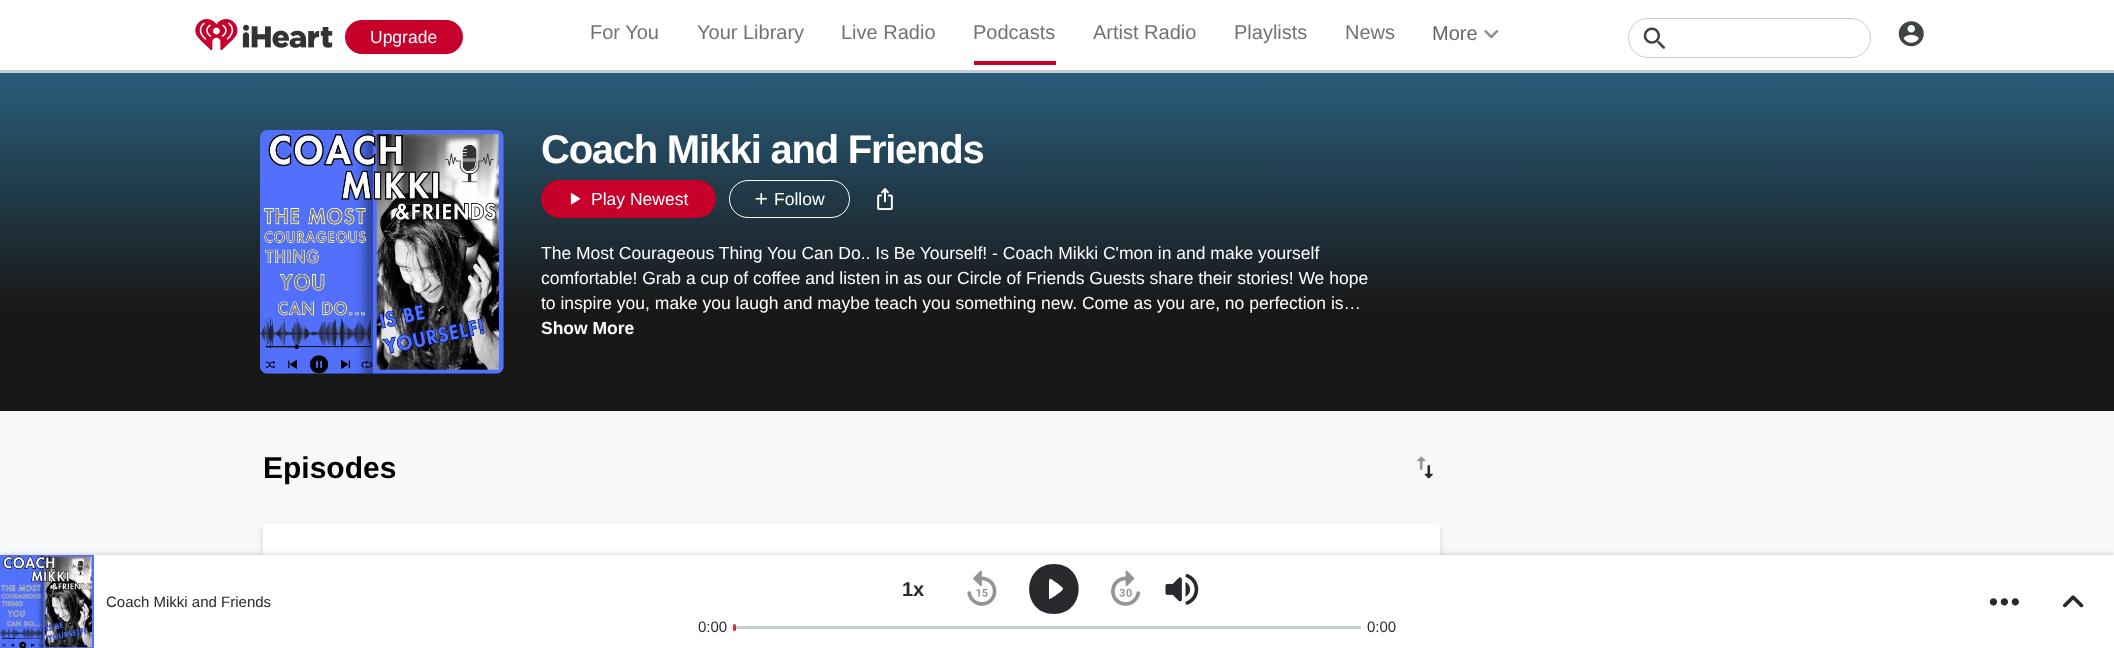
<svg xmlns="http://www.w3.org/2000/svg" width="2114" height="648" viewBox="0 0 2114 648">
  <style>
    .t1 { font: 17.5px Liberation Sans; fill: #fff; }
    .t2 { font: 20px Liberation Sans; fill: #717277; }
    .t3 { font: 20px Liberation Sans; fill: #666; }
    .t4 { font: bold 40px Liberation Sans; letter-spacing: -1.25px; fill: #fff; }
    .t5 { font: bold 17.5px Liberation Sans; fill: #fff; }
    .t6 { font: bold 30px Liberation Sans; fill: #000; }
    .t7 { font: 15px Liberation Sans; fill: #27292d; }
    .t8 { font: bold 20px Liberation Sans; fill: #27292d; }
  </style>
  <defs>
    <linearGradient id="g1" gradientUnits="userSpaceOnUse" x1="1058" y1="72" x2="1058" y2="411"><stop offset="0" stop-color="#2a5d7b"/><stop offset="0.7" stop-color="#181818"/></linearGradient>
  </defs>
  <rect width="100%" height="100%" fill="#fff"/>
  <rect x="0" y="70" width="2114" height="3" fill="#c5cdd2"/>
  <image x="195" y="19" width="138" height="32" href="images/1.png"/>
  <rect x="345" y="20" width="118" height="34" rx="17" fill="#c6002b"/>
  <text x="370" y="43" class="t1">Upgrade</text>
  <text x="590" y="39" class="t2">For You</text>
  <text x="697" y="39" class="t2">Your Library</text>
  <text x="841" y="39" class="t2">Live Radio</text>
  <text x="973" y="39" class="t2">Podcasts</text>
  <rect x="974" y="61" width="82" height="4" fill="#c6002b"/>
  <text x="1093" y="39" class="t2">Artist Radio</text>
  <text x="1234" y="39" class="t2">Playlists</text>
  <text x="1345" y="39" class="t2">News</text>
  <text x="1432" y="40" class="t3">More</text>
  <image x="1484" y="30" width="15" height="9" href="images/2.png"/>
  <rect x="1628.5" y="18.5" width="242" height="39" rx="19.5" fill="none" stroke="#c5cdd2"/>
  <image x="1643" y="27" width="22" height="22" href="images/3.png"/>
  <image x="1898" y="21" width="26" height="26" href="images/4.png"/>
  <rect x="0" y="73" width="2114" height="338" fill="url(#g1)"/>
  <image x="260" y="130" width="244" height="244" href="images/5.png"/>
  <text x="541" y="163" class="t4">Coach Mikki and Friends</text>
  <rect x="541" y="180" width="175" height="38" rx="19" fill="#c6002b"/>
  <image x="570" y="193" width="11" height="12" href="images/6.png"/>
  <text x="591" y="205" class="t1">Play Newest</text>
  <rect x="729.5" y="180.5" width="120" height="37" rx="18.5" fill="none" stroke="#fff"/>
  <image x="755" y="193" width="12" height="12" href="images/7.png"/>
  <text x="774" y="205" class="t1">Follow</text>
  <image x="877" y="188" width="16" height="22" href="images/8.png"/>
  <text x="541" y="259" class="t1">The Most Courageous Thing You Can Do.. Is Be Yourself! - Coach Mikki C'mon in and make yourself</text>
  <text x="541" y="284" class="t1">comfortable! Grab a cup of coffee and listen in as our Circle of Friends Guests share their stories! We hope</text>
  <text x="541" y="309" class="t1">to inspire you, make you laugh and maybe teach you something new. Come as you are, no perfection is…</text>
  <text x="541" y="334" class="t5">Show More</text>
  <rect x="0" y="411" width="2114" height="144" fill="#f6f8f9"/>
  <text x="263" y="478" class="t6">Episodes</text>
  <image x="1417" y="456" width="16" height="23" href="images/9.png"/>
  <rect x="263" y="528" width="1177" height="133" rx="4" fill="#00000026" filter="blur(3px)"/>
  <rect x="263" y="524" width="1177" height="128" rx="4" fill="#fff"/>
  <rect x="0" y="554" width="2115" height="94" fill="#00000026" filter="blur(2px)"/>
  <rect x="94" y="555" width="2020" height="93" fill="#fff"/>
  <image x="0" y="555" width="94" height="93" href="images/10.png"/>
  <text x="106" y="607" class="t7">Coach Mikki and Friends</text>
  <text x="902" y="596" class="t8">1x</text>
  <image x="967" y="570" width="30" height="36" href="images/11.png"/>
  <path d="M1054 564C1021 564 1021 614 1054 614C1087 614 1087 564 1054 564ZM1049 598V583C1049 575 1052 580 1057 583L1063 588C1064 590 1056 595 1055 596C1054 596 1049 601 1049 598Z" fill="#27292d"/>
  <image x="1111" y="570" width="29" height="36" href="images/12.png"/>
  <image x="1165" y="574" width="34" height="31" href="images/13.png"/>
  <text x="698" y="632" class="t7">0:00</text>
  <rect x="734" y="626" width="627" height="3" rx="1.5" fill="#c5cdd2"/>
  <rect x="733" y="624" width="3" height="7" rx="1.5" fill="#d52d37"/>
  <text x="1367" y="632" class="t7">0:00</text>
  <image x="1989" y="598" width="30" height="8" href="images/14.png"/>
  <image x="2062" y="595" width="22" height="13" href="images/15.png"/>
</svg>
